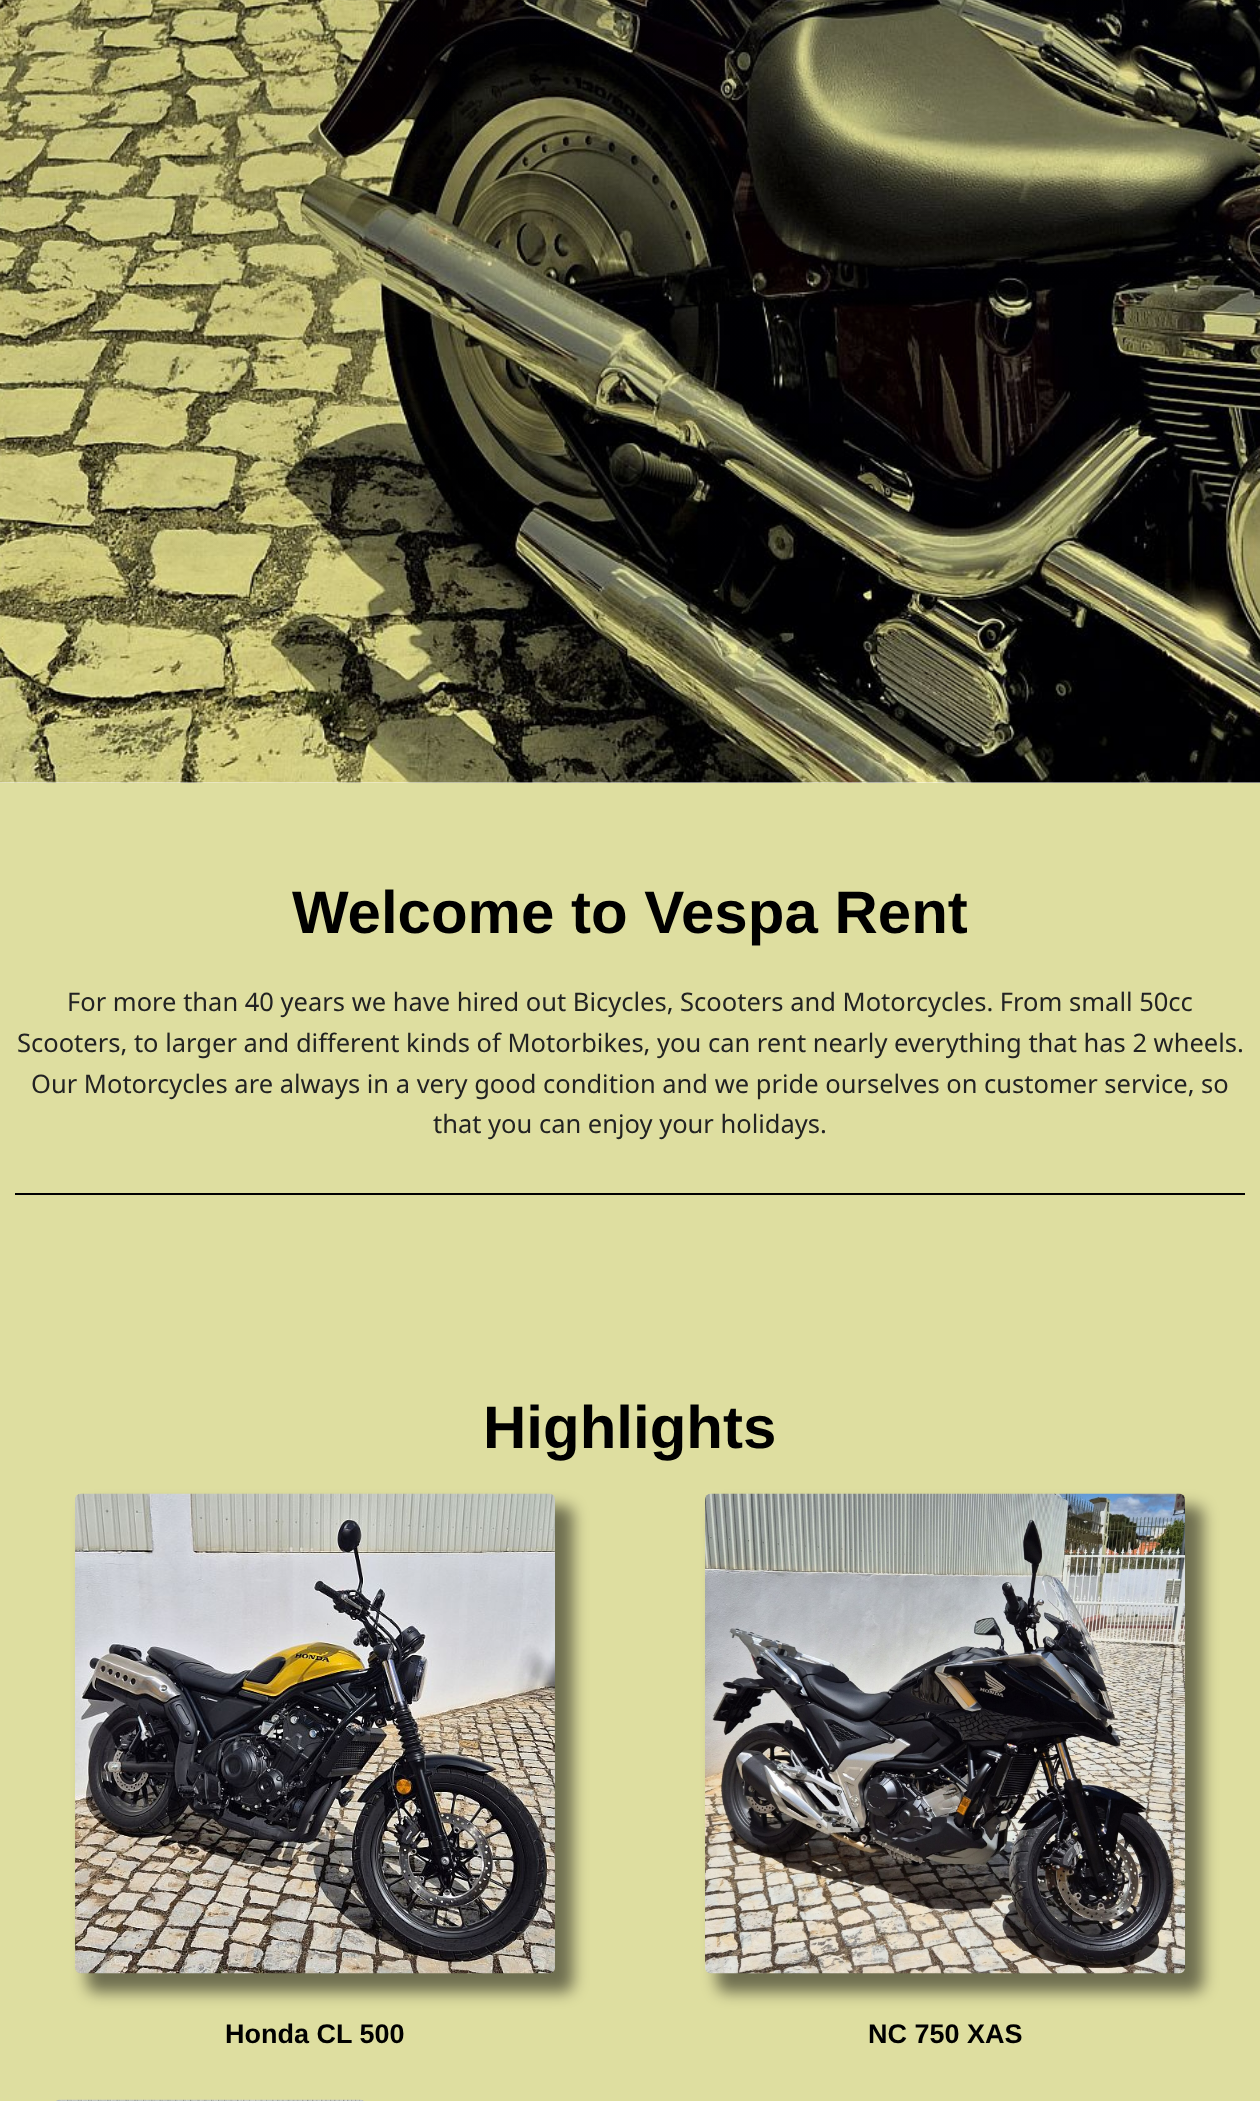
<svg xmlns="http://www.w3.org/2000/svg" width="1260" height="2101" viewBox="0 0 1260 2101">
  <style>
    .t1 { font: bold 60px Liberation Sans; fill: #000; }
    .t2 { font: 25.5px Noto Sans; fill: #222; }
    .t3 { font: bold 27px Liberation Sans; fill: #000; }
  </style>
  <defs>
    <linearGradient id="g1" gradientUnits="userSpaceOnUse" x1="630" y1="-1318" x2="630" y2="783"><stop offset="0" stop-color="#040219" stop-opacity="0.2"/><stop offset="1" stop-color="#040219" stop-opacity="0"/></linearGradient>
  </defs>
  <rect width="100%" height="100%" fill="#fff"/>
  <image x="0" y="0" width="1260" height="783" href="images/1.png"/>
  <rect x="0" y="0" width="1260" height="556" fill="url(#g1)"/>
  <rect x="0" y="783" width="1260" height="1318" fill="#dedea0"/>
  <text x="292" y="933" class="t1">Welcome to Vespa Rent</text>
  <text x="67" y="1011" class="t2">For more than 40 years we have hired out Bicycles, Scooters and Motorcycles. From small 50cc</text>
  <text x="17" y="1052" class="t2">Scooters, to larger and different kinds of Motorbikes, you can rent nearly everything that has 2 wheels.</text>
  <text x="31" y="1093" class="t2">Our Motorcycles are always in a very good condition and we pride ourselves on customer service, so</text>
  <text x="433" y="1133" class="t2">that you can enjoy your holidays.</text>
  <rect x="15" y="1193" width="1230" height="2" fill="#000"/>
  <text x="483" y="1448" class="t1">Highlights</text>
  <rect x="87" y="1506" width="486" height="486" rx="9" fill="#00000080" filter="blur(7.5px)"/>
  <image x="75" y="1493" width="480" height="481" href="images/2.png"/>
  <text x="225" y="2043" class="t3">Honda CL 500</text>
  <rect x="717" y="1506" width="486" height="486" rx="9" fill="#00000080" filter="blur(7.5px)"/>
  <image x="705" y="1493" width="480" height="481" href="images/3.png"/>
  <text x="868" y="2043" class="t3">NC 750 XAS</text>
  <image x="56" y="2099" width="308" height="2" href="images/4.png"/>
</svg>
